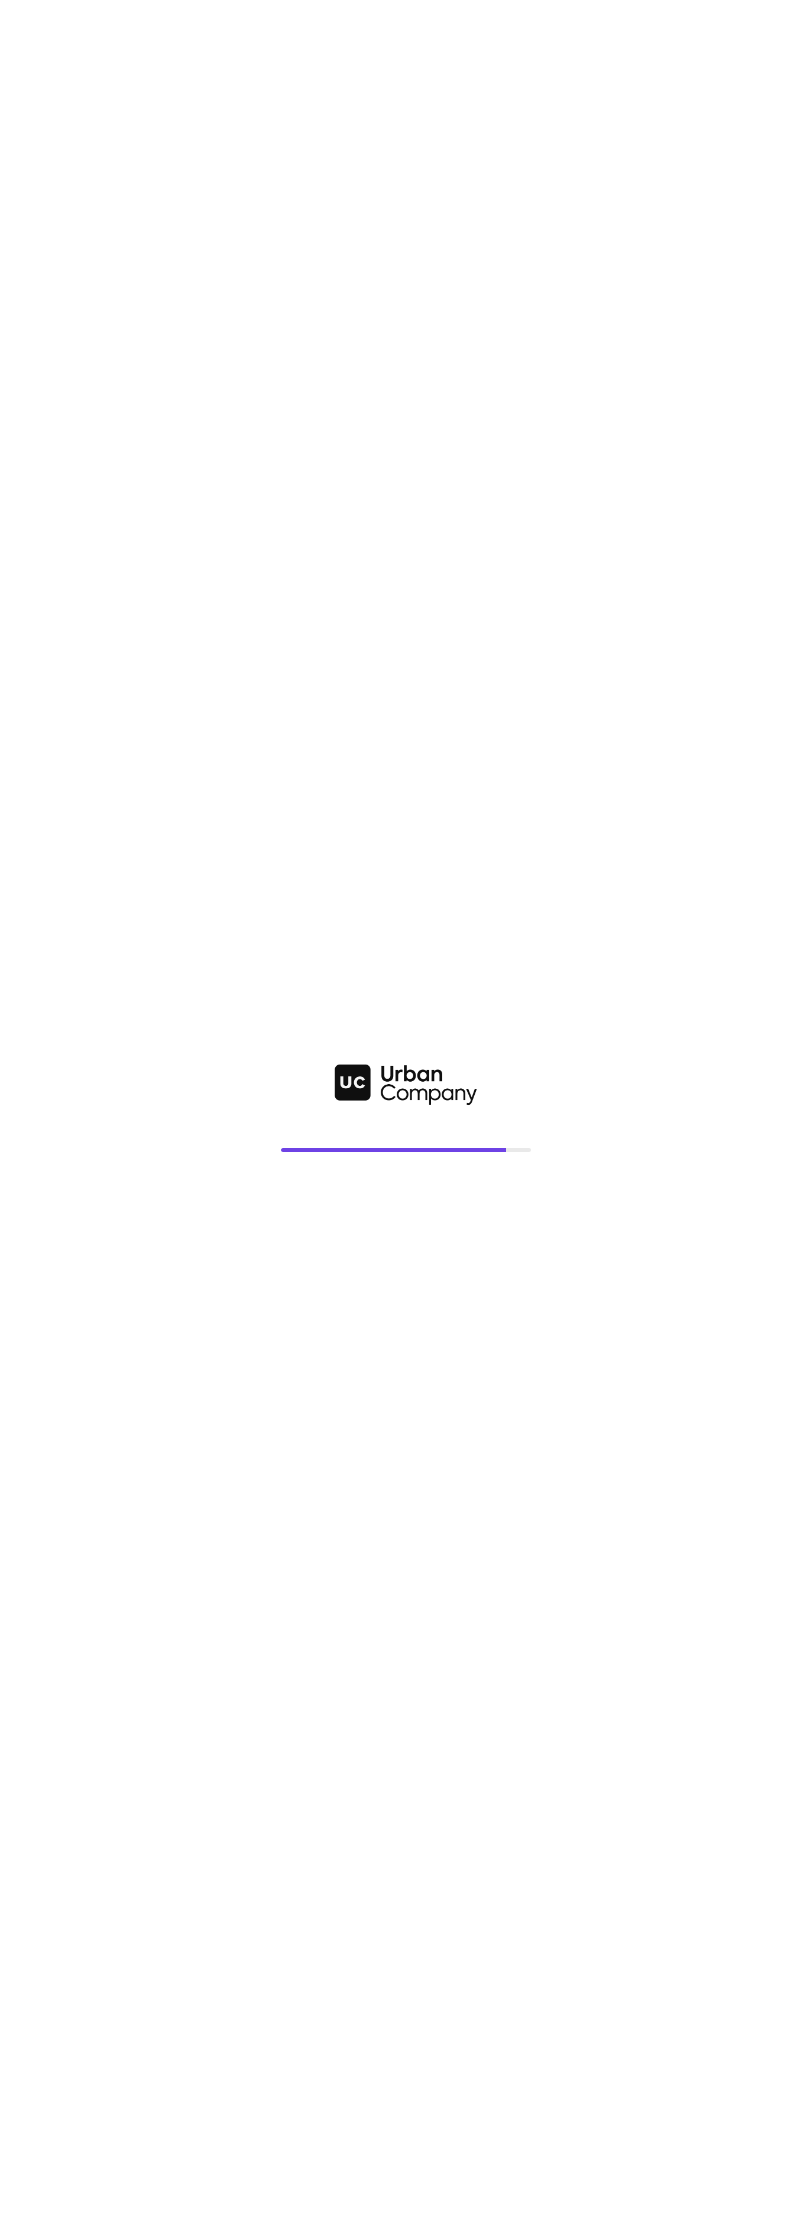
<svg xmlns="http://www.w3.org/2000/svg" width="812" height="2213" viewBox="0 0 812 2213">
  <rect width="100%" height="100%" fill="#fff"/>
  <image x="334" y="1064" width="143" height="42" href="images/1.png"/>
  <rect x="281" y="1148" width="250" height="4" rx="2" fill="#e9e9e9"/>
  <path d="M283 1148H506V1152H283C282 1152 281 1151 281 1150C281 1149 282 1148 283 1148Z" fill="#6e42e5"/>
</svg>
